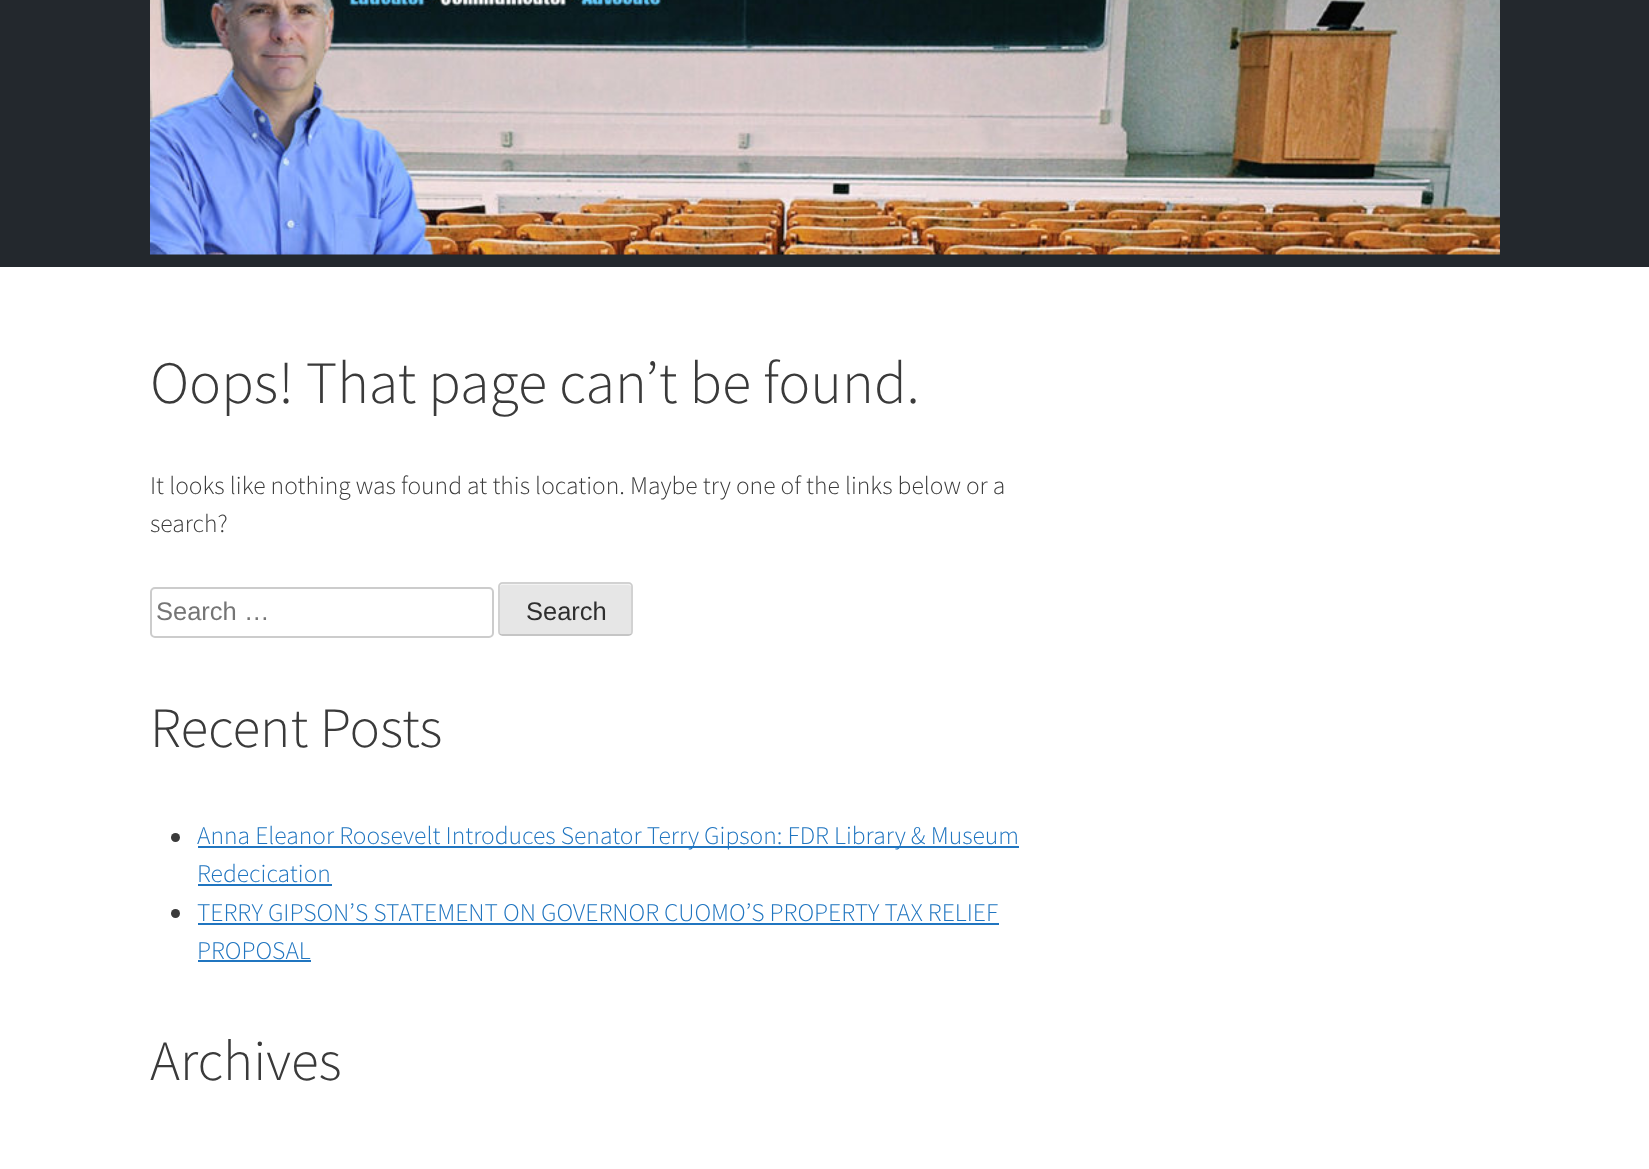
<svg xmlns="http://www.w3.org/2000/svg" width="1649" height="1169" viewBox="0 0 1649 1169">
  <style>
    .t1 { font: 300 60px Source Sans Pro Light; fill: #3a3a3a; }
    .t2 { font: 300 25.5px Source Sans Pro Light; fill: #3a3a3a; }
    .t3 { font: 25.5px Liberation Sans; fill: #757575; }
    .t4 { font: 25.5px Liberation Sans; fill: #2e2e2e; }
    .t5 { font: 300 57px Source Sans Pro Light; fill: #3a3a3a; }
    .t6 { font: 300 25.5px Source Sans Pro Light; fill: #2075c0; }
  </style>
  <rect width="100%" height="100%" fill="#fff"/>
  <rect x="0" y="0" width="1649" height="267" fill="#23282d"/>
  <image x="150" y="0" width="1350" height="255" href="images/1.png"/>
  <text x="150" y="403" class="t1">Oops! That page can’t be found.</text>
  <text x="150" y="494" class="t2">It looks like nothing was found at this location. Maybe try one of the links below or a</text>
  <text x="150" y="532" class="t2">search?</text>
  <rect x="151" y="588" width="342" height="49" rx="4" fill="none" stroke="#ccc" stroke-width="2"/>
  <text x="156" y="620" class="t3">Search …</text>
  <rect x="498" y="582" width="135" height="54" rx="5" fill="#e6e6e6"/>
  <path d="M502 585H628C630 585 632 586 632 588C632 586 632 584 630 584H502C500 584 500 586 500 588C500 586 501 585 502 585Z" fill="#f3f3f3"/>
  <path d="M631 634C630.5 635 629.5 635 628.5 635H502.5C501.5 635 500.5 635 500 634" fill="none" stroke="#bbb" stroke-width="1.5"/>
  <path d="M500 634C499 633.5 499 632.5 499 631.5V586.5C499 585.5 499 584.5 500 584C500.5 583 501.5 583 502.5 583H628.5C629.5 583 630.5 583 631 584C632 584.5 632 585.5 632 586.5V631.5C632 632.5 632 633.5 631 634" fill="none" stroke="#ccc" stroke-width="1.5"/>
  <text x="526" y="620" class="t4">Search</text>
  <text x="150" y="747" class="t5">Recent Posts</text>
  <circle cx="175.5" cy="837.5" r="4.5" fill="#3a3a3a"/>
  <rect x="198" y="846" width="821" height="2" fill="#2075c0"/>
  <text x="197" y="844" class="t6">Anna Eleanor Roosevelt Introduces Senator Terry Gipson: FDR Library &amp; Museum</text>
  <text x="197" y="882" class="t6">Redecication</text>
  <rect x="198" y="884" width="134" height="2" fill="#2075c0"/>
  <circle cx="175.5" cy="913.5" r="4.5" fill="#3a3a3a"/>
  <text x="197" y="921" class="t6">TERRY GIPSON’S STATEMENT ON GOVERNOR CUOMO’S PROPERTY TAX RELIEF</text>
  <rect x="198" y="923" width="801" height="2" fill="#2075c0"/>
  <text x="197" y="959" class="t6">PROPOSAL</text>
  <rect x="198" y="960" width="113" height="2" fill="#2075c0"/>
  <text x="150" y="1080" class="t5">Archives</text>
</svg>
